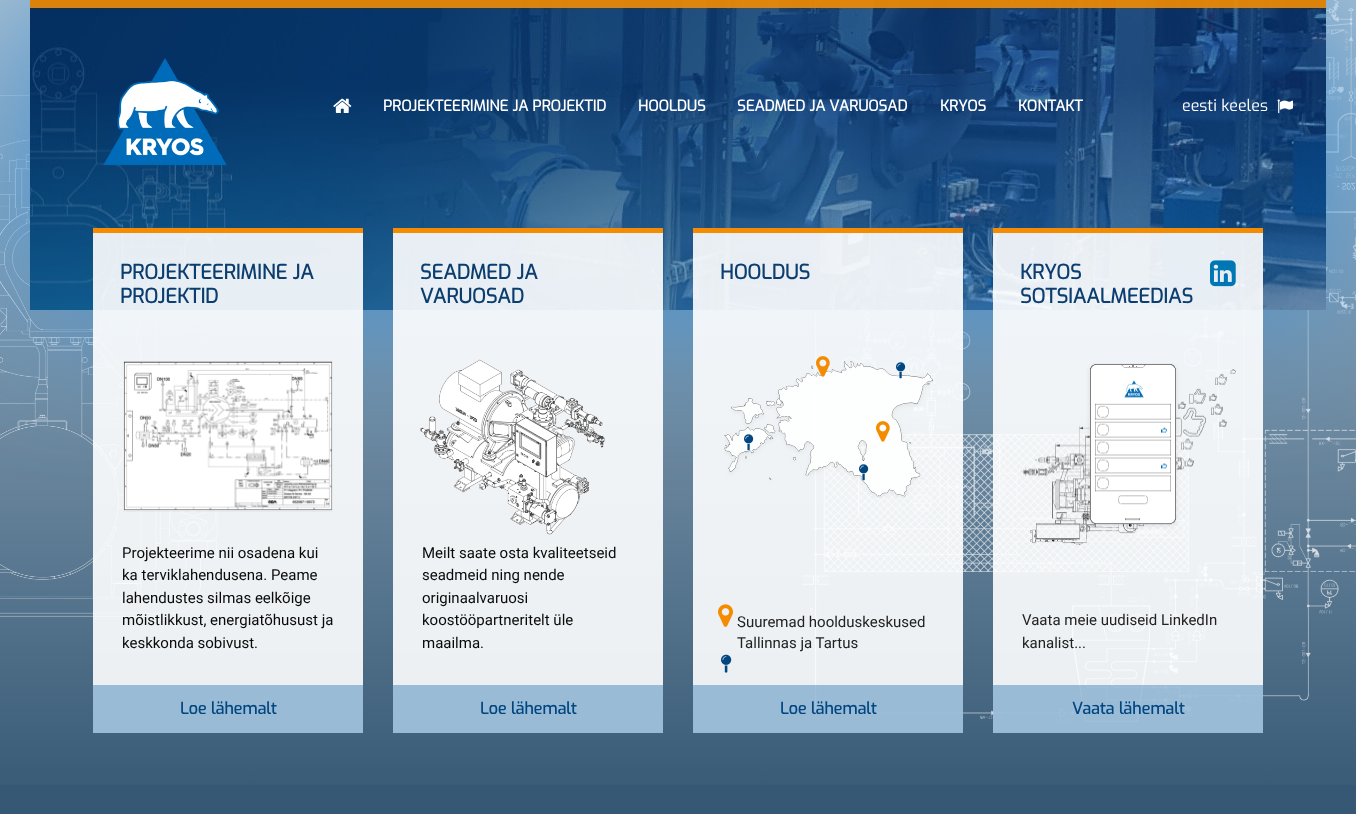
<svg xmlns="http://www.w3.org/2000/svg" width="1356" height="814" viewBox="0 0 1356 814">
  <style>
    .t1 { font: bold 15px Exo; fill: #fff; }
    .t2 { font: 16px Exo; fill: #fff; }
    .t3 { font: bold 20px Exo; fill: #0c3d6f; }
    .t4 { font: 15px Roboto; fill: #0a0a0a; }
    .t5 { font: bold 16px Exo; fill: #004681; }
    .t6 { font: 15px Roboto; fill: #222; }
  </style>
  <rect width="100%" height="100%" fill="#365874"/>
  <image x="0" y="0" width="1356" height="785" href="images/1.png"/>
  <rect x="30" y="0" width="1296" height="310" fill="#4291d4" filter="blur(74px)"/>
  <image x="30" y="0" width="1296" height="310" href="images/2.png"/>
  <image x="103" y="58" width="124" height="108" href="images/3.png"/>
  <image x="333" y="98" width="19" height="15" href="images/4.png"/>
  <text x="383" y="111" class="t1">PROJEKTEERIMINE JA PROJEKTID</text>
  <text x="638" y="111" class="t1">HOOLDUS</text>
  <text x="737" y="111" class="t1">SEADMED JA VARUOSAD</text>
  <text x="940" y="111" class="t1">KRYOS</text>
  <text x="1018" y="111" class="t1">KONTAKT</text>
  <text x="1182" y="111" class="t2">eesti keeles</text>
  <image x="1277" y="99" width="16" height="15" href="images/5.png"/>
  <rect x="93" y="233" width="270" height="452" fill="#ffffffe6"/>
  <rect x="93" y="228" width="270" height="5" fill="#f48b00"/>
  <text x="120" y="279" class="t3">PROJEKTEERIMINE JA</text>
  <text x="120" y="303" class="t3">PROJEKTID</text>
  <image x="123" y="361" width="210" height="151" href="images/6.png"/>
  <text x="122" y="558" class="t4">Projekteerime nii osadena kui</text>
  <text x="122" y="580" class="t4">ka terviklahendusena. Peame</text>
  <text x="122" y="603" class="t4">lahendustes silmas eelkõige</text>
  <text x="122" y="625" class="t4">mõistlikkust, energiatõhusust ja</text>
  <text x="122" y="648" class="t4">keskkonda sobivust.</text>
  <rect x="93" y="685" width="270" height="48" fill="#9abbd5"/>
  <text x="180" y="714" class="t5">Loe lähemalt</text>
  <rect x="393" y="233" width="270" height="452" fill="#ffffffe6"/>
  <rect x="393" y="228" width="270" height="5" fill="#f48b00"/>
  <text x="420" y="279" class="t3">SEADMED JA</text>
  <text x="420" y="303" class="t3">VARUOSAD</text>
  <image x="420" y="359" width="185" height="176" href="images/7.png"/>
  <text x="422" y="558" class="t4">Meilt saate osta kvaliteetseid</text>
  <text x="422" y="580" class="t4">seadmeid ning nende</text>
  <text x="422" y="603" class="t4">originaalvaruosi</text>
  <text x="422" y="625" class="t4">koostööpartneritelt üle</text>
  <text x="422" y="648" class="t4">maailma.</text>
  <rect x="393" y="685" width="270" height="48" fill="#9abbd5"/>
  <text x="480" y="714" class="t5">Loe lähemalt</text>
  <rect x="693" y="233" width="270" height="500" fill="#ffffffe6"/>
  <rect x="693" y="228" width="270" height="5" fill="#f48b00"/>
  <text x="720" y="279" class="t3">HOOLDUS</text>
  <image x="724" y="361" width="209" height="137" href="images/8.png"/>
  <image x="816" y="356" width="14" height="21" href="images/9.png"/>
  <image x="896" y="362" width="10" height="17" href="images/10.png"/>
  <image x="744" y="434" width="10" height="17" href="images/11.png"/>
  <image x="876" y="421" width="14" height="21" href="images/12.png"/>
  <image x="859" y="464" width="10" height="17" href="images/13.png"/>
  <image x="718" y="604" width="15" height="23" href="images/14.png"/>
  <text x="737" y="627" class="t6">Suuremad hoolduskeskused</text>
  <text x="737" y="648" class="t6">Tallinnas ja Tartus</text>
  <image x="721" y="654" width="11" height="19" href="images/15.png"/>
  <rect x="693" y="685" width="270" height="48" fill="#1f6baa66"/>
  <text x="780" y="714" class="t5">Loe lähemalt</text>
  <rect x="993" y="233" width="270" height="500" fill="#ffffffe6"/>
  <rect x="993" y="228" width="270" height="5" fill="#f48b00"/>
  <text x="1020" y="279" class="t3">KRYOS</text>
  <image x="1210" y="260" width="26" height="27" href="images/16.png"/>
  <text x="1020" y="303" class="t3">SOTSIAALMEEDIAS</text>
  <image x="1021" y="363" width="215" height="183" href="images/17.png"/>
  <text x="1022" y="625" class="t6">Vaata meie uudiseid LinkedIn</text>
  <text x="1022" y="648" class="t6">kanalist...</text>
  <rect x="993" y="685" width="270" height="48" fill="#1f6baa66"/>
  <text x="1072" y="714" class="t5">Vaata lähemalt</text>
</svg>
